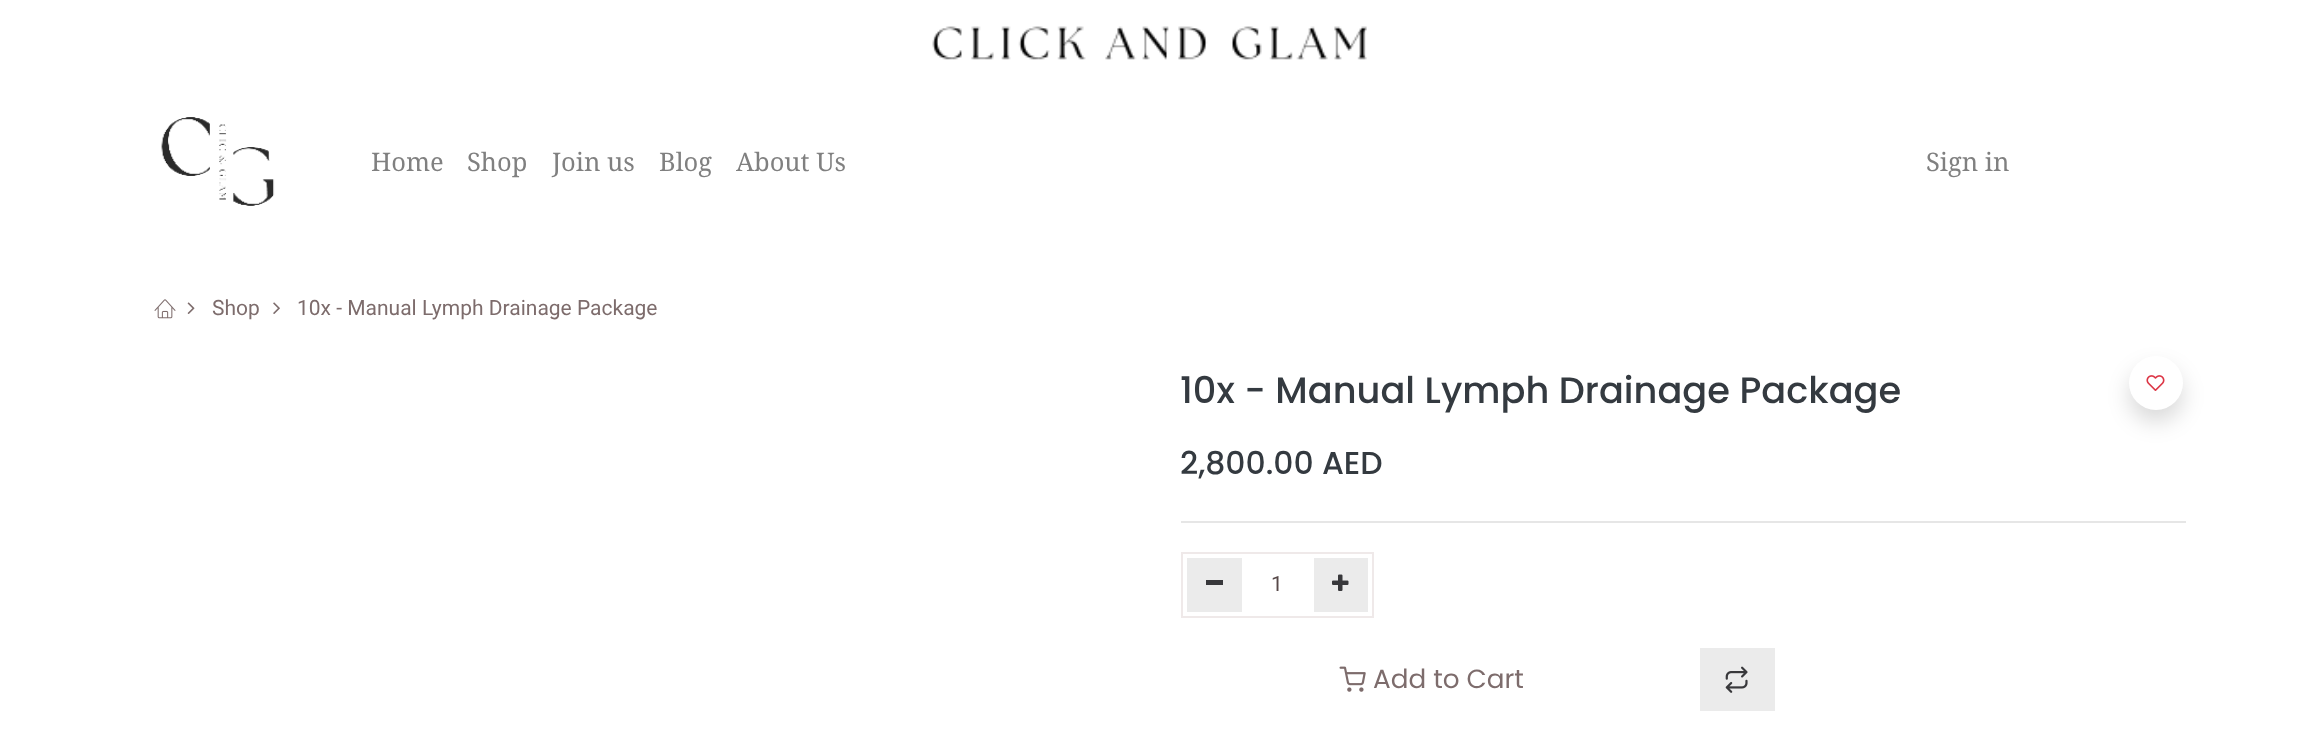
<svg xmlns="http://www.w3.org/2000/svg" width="2316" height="731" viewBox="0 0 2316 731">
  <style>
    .t1 { font: 25.5px Noto Serif; fill: #808080; }
    .t2 { font: 21px Roboto; fill: #7d6c6c; }
    .t3 { font: 500 36.75px Poppins; fill: #343a40; }
    .t4 { font: 500 31.5px Poppins; fill: #343a40; }
    .t5 { font: 21px Roboto; fill: #574949; }
    .t6 { font: 26.25px Poppins; fill: #7d6c6c; }
  </style>
  <rect width="100%" height="100%" fill="#fff"/>
  <image x="932" y="26" width="435" height="34" href="images/1.png"/>
  <image x="161" y="117" width="114" height="89" href="images/2.png"/>
  <text x="371" y="171" class="t1">Home</text>
  <text x="467" y="171" class="t1">Shop</text>
  <text x="552" y="171" class="t1">Join us</text>
  <text x="659" y="171" class="t1">Blog</text>
  <text x="736" y="171" class="t1">About Us</text>
  <text x="1926" y="171" class="t1">Sign in</text>
  <image x="154" y="299" width="22" height="20" href="images/3.png"/>
  <image x="187" y="302" width="8" height="12" href="images/4.png"/>
  <text x="212" y="315" class="t2">Shop</text>
  <image x="273" y="302" width="7" height="12" href="images/5.png"/>
  <text x="297" y="315" class="t2">10x - Manual Lymph Drainage Package</text>
  <text x="1180" y="403" class="t3">10x - Manual Lymph Drainage Package</text>
  <text x="1180" y="474" class="t4">2,800.00 AED</text>
  <rect x="1181" y="521" width="1005" height="2" fill="#e6e6e6"/>
  <rect x="1182" y="553" width="191" height="64" fill="none" stroke="#efe9e9" stroke-width="2"/>
  <rect x="1187" y="558" width="55" height="54" fill="#ebebeb"/>
  <rect x="1206" y="580" width="17" height="5" fill="#38383b"/>
  <text x="1271" y="591" class="t5">1</text>
  <rect x="1314" y="558" width="54" height="54" fill="#ebebeb"/>
  <image x="1332" y="574" width="17" height="17" href="images/6.png"/>
  <rect x="2129" y="368" width="54" height="54" rx="27" fill="#00000026" filter="blur(11px)"/>
  <circle cx="2156" cy="383" r="27" fill="#fff"/>
  <image x="2146" y="375" width="19" height="16" href="images/7.png"/>
  <image x="1339" y="666" width="27" height="26" href="images/8.png"/>
  <text x="1373" y="688" class="t6">Add to Cart</text>
  <rect x="1700" y="648" width="75" height="63" fill="#ebebeb"/>
  <image x="1725" y="666" width="23" height="27" href="images/9.png"/>
</svg>
